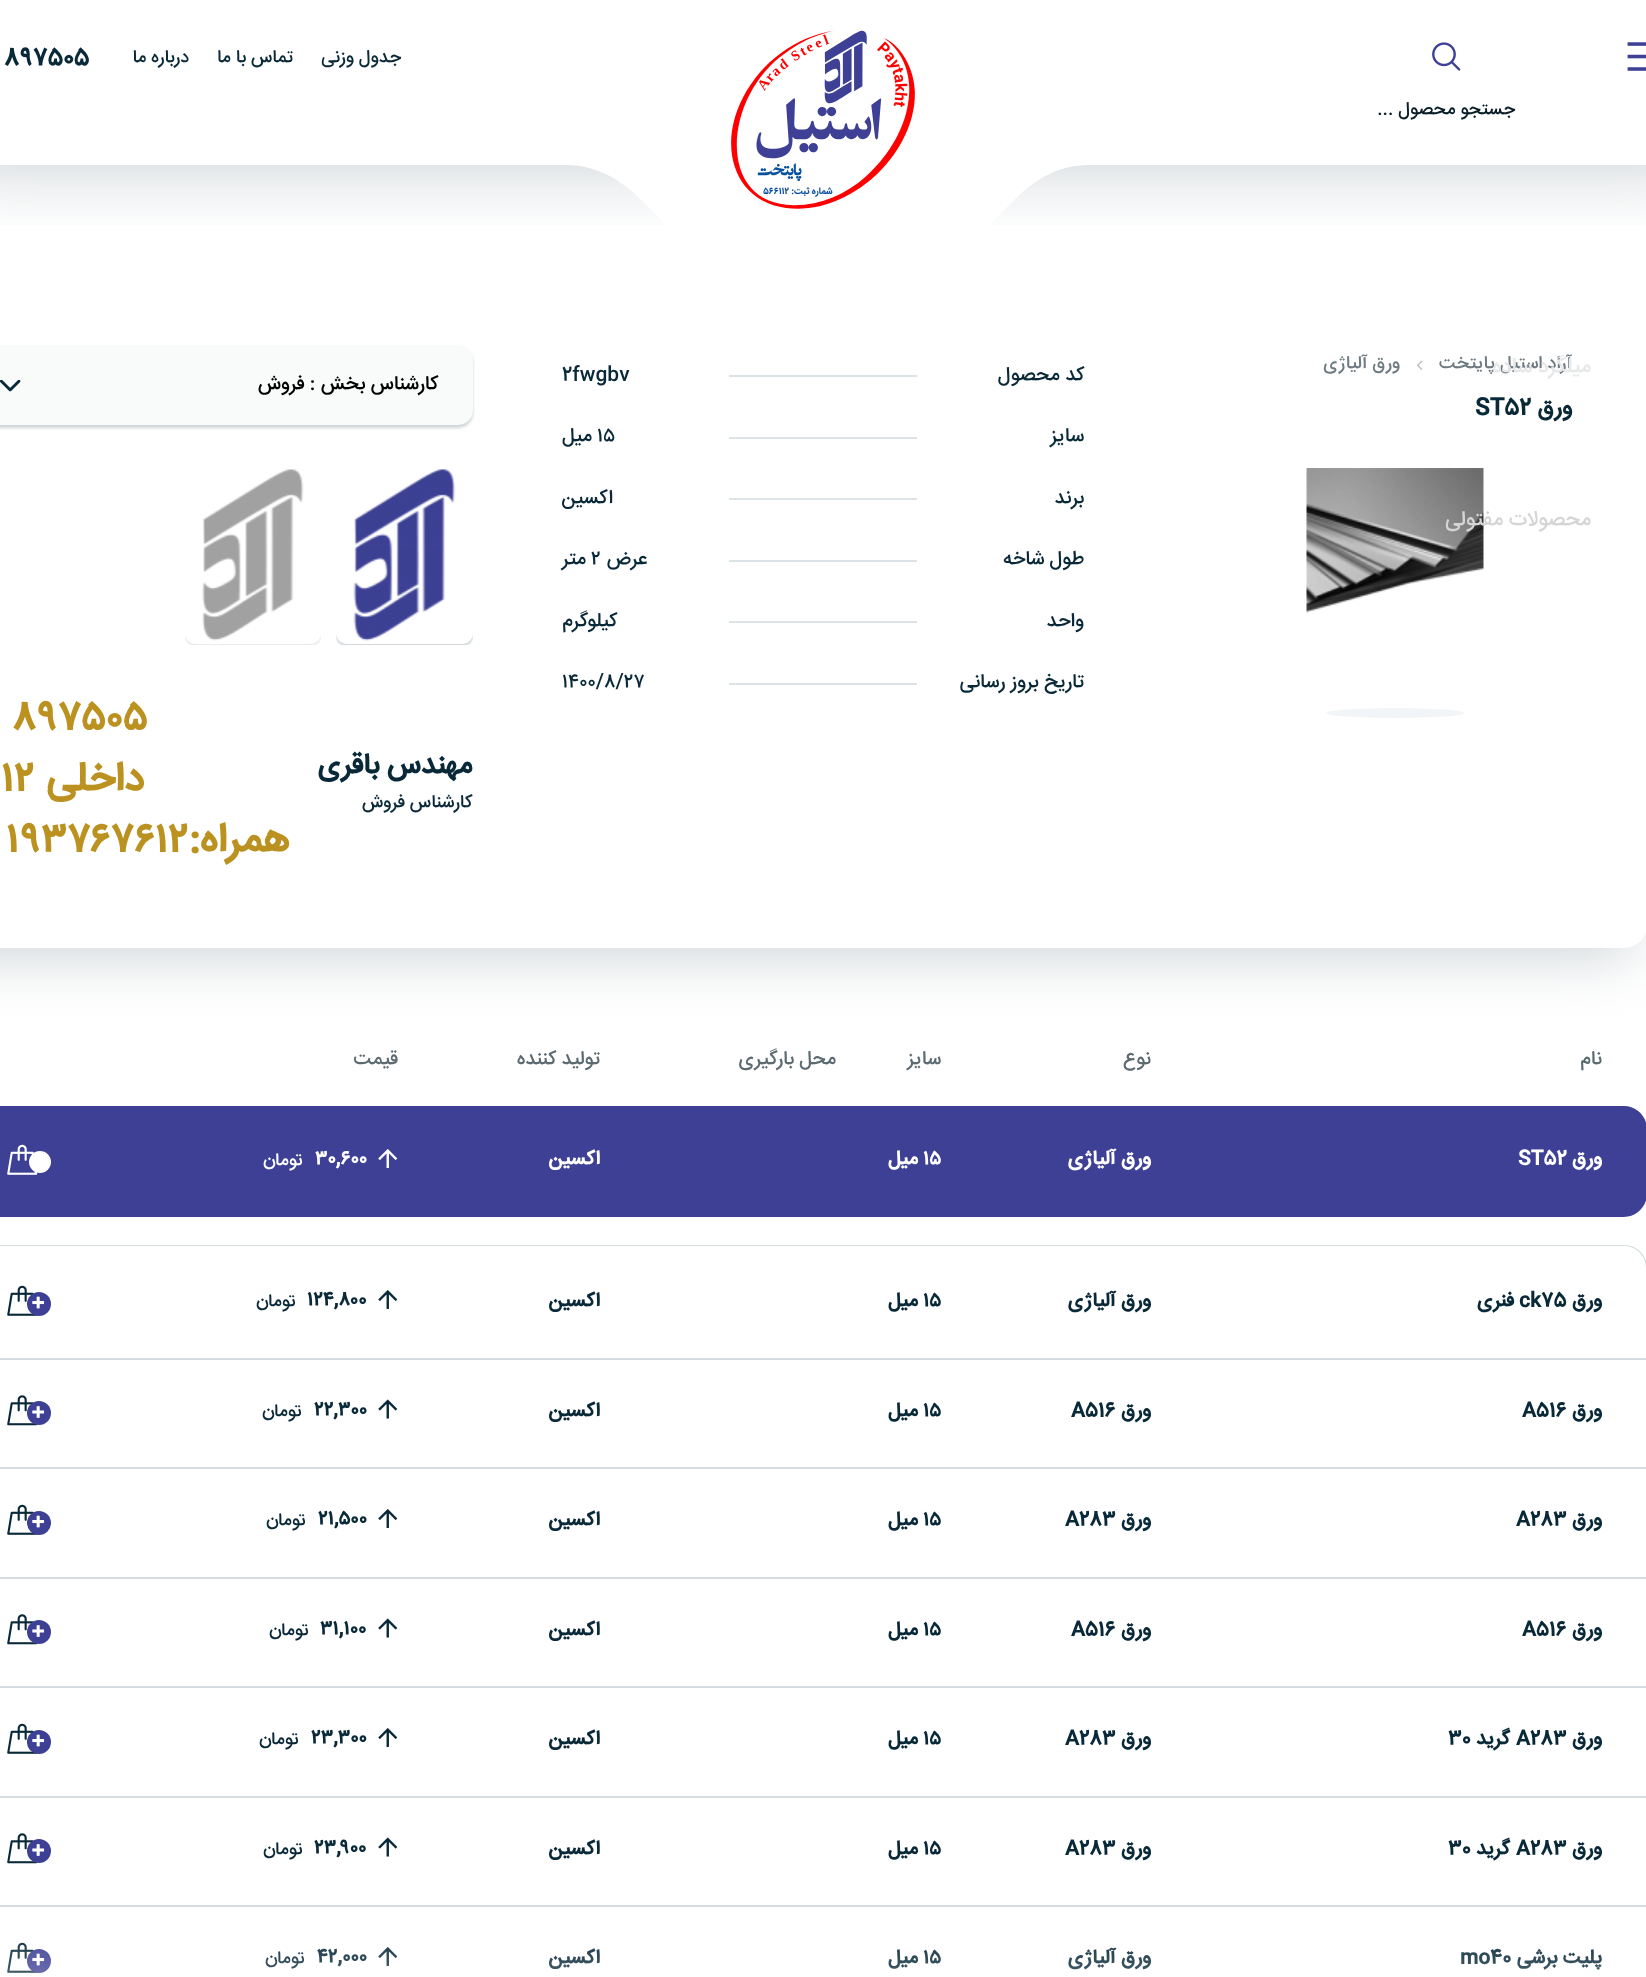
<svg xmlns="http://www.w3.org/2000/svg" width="1646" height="1977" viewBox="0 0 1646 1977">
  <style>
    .t1 { font: 500 18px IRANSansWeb; direction: rtl; fill: #092939; }
    .t2 { font: bold 25.5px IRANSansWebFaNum; fill: #092939; }
    .t3 { font: 500 18px IRANSansWeb; direction: rtl; fill: #091e28; }
    .t4 { font: 500 18px IRANSansWebFaNum; direction: rtl; fill: #6d7a81; }
    .t5 { font: 500 21px IRANSansWeb; direction: rtl; fill: #e6e8e9; }
    .t6 { font: 500 21px IRANSansWeb; direction: rtl; fill: #d5d5d5; }
    .t7 { font: bold 22.5px IRANSansWebFaNum; direction: rtl; fill: #092939; }
    .t8 { font: bold 22.5px IRANSansWebFaNum; fill: #092939; }
    .t9 { font: 500 19.5px IRANSansWebFaNum; direction: rtl; fill: #092939; }
    .t10 { font: 500 19.5px IRANSansWebFaNum; fill: #092939; }
    .t11 { font: 500 19.5px IRANSansWebFaNum; direction: rtl; fill: #000; }
    .t12 { font: bold 28.5px IRANSansWebFaNum; direction: rtl; fill: #092939; }
    .t13 { font: 500 18px IRANSansWebFaNum; direction: rtl; fill: #092939; }
    .t14 { font: bold 40.5px IRANSansWebFaNum; fill: #bb9120; }
    .t15 { font: bold 40.5px IRANSansWebFaNum; direction: rtl; fill: #bb9120; }
    .t16 { font: 500 19.5px IRANSansWebFaNum; direction: rtl; fill: #5c6b72; }
    .t17 { font: bold 19.5px IRANSansWebFaNum; direction: rtl; fill: #fff; }
    .t18 { font: bold 19.5px IRANSansWebFaNum; fill: #fff; }
    .t19 { font: 500 18px IRANSansWebFaNum; direction: rtl; fill: #fff; }
    .t20 { font: bold 19.5px IRANSansWebFaNum; direction: rtl; fill: #092939; }
    .t21 { font: bold 19.5px IRANSansWebFaNum; fill: #092939; }
  </style>
  <defs>
    <clipPath id="clip1"><rect x="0" y="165" width="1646" height="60"/></clipPath>
    <clipPath id="clip2"><rect x="464" y="165" width="720" height="150"/></clipPath>
    <clipPath id="clip3"><rect x="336" y="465" width="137" height="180" rx="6"/></clipPath>
    <clipPath id="clip4"><path d="M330 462H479V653H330ZM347 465H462C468 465 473 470 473 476V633C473 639 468 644 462 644H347C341 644 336 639 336 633V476C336 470 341 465 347 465Z" clip-rule="evenodd"/></clipPath>
    <clipPath id="clip5"><rect x="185" y="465" width="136" height="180" rx="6"/></clipPath>
    <clipPath id="clip6"><path d="M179 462H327V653H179ZM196 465H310C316 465 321 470 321 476V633C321 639 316 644 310 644H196C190 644 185 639 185 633V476C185 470 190 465 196 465Z" clip-rule="evenodd"/></clipPath>
    <linearGradient id="g1" gradientUnits="userSpaceOnUse" x1="770" y1="1922" x2="770" y2="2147"><stop offset="0" stop-color="#fff" stop-opacity="0"/><stop offset="1" stop-color="#fff"/></linearGradient>
  </defs>
  <rect width="100%" height="100%" fill="#fff"/>
  <rect x="-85" y="315" width="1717" height="641" fill="#ced4d7" filter="blur(30px)"/>
  <rect x="-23" y="195" width="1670" height="753" rx="23" fill="#fff"/>
  <g clip-path="url(#clip1)">
    <rect x="-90" y="60" width="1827" height="45" fill="#092939" filter="blur(60px)"/>
  </g>
  <g clip-path="url(#clip2)">
    <path d="M-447-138H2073V165H1090C1016 165 1000 240 955 240H700C656 240 640 165 564 165H-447Z" fill="#fff"/>
  </g>
  <image x="731" y="30" width="184" height="179" href="images/1.png"/>
  <text x="401" y="62" class="t1">جدول وزنی</text>
  <text x="293" y="62" class="t1">تماس با ما</text>
  <text x="189" y="62" class="t1">درباره ما</text>
  <text x="4" y="65" class="t2">۸۹۷۵۰۵</text>
  <image x="1627" y="42" width="19" height="29" href="images/2.png"/>
  <image x="1432" y="42" width="29" height="29" href="images/3.png"/>
  <text x="1515" y="114" class="t3">جستجو محصول ...</text>
  <text x="1572" y="368" class="t4">آراد استیل پایتخت</text>
  <text x="1591" y="372" class="t5">میلگرد ساده</text>
  <image x="1306" y="468" width="178" height="145" href="images/5.png"/>
  <text x="1591" y="525" class="t6">محصولات مفتولی</text>
  <image x="1417" y="360" width="6" height="10" href="images/4.png"/>
  <text x="1400" y="368" class="t4">ورق آلیاژی</text>
  <text x="1572" y="414" class="t7">ورق</text>
  <text x="1475" y="414" class="t8">ST52</text>
  <ellipse cx="1395" cy="713" rx="69" ry="5" fill="#f1f5f7"/>
  <text x="1084" y="380" class="t9">کد محصول</text>
  <rect x="729" y="375" width="188" height="2" fill="#dce3e7"/>
  <text x="562" y="380" class="t10">2fwgbv</text>
  <text x="1084" y="441" class="t9">سایز</text>
  <rect x="729" y="437" width="188" height="2" fill="#dce3e7"/>
  <text x="597" y="441" class="t10">۱۵</text>
  <text x="592" y="441" class="t9">میل</text>
  <text x="1084" y="503" class="t9">برند</text>
  <rect x="729" y="498" width="188" height="2" fill="#dce3e7"/>
  <text x="613" y="503" class="t9">اکسین</text>
  <text x="1084" y="564" class="t9">طول شاخه</text>
  <rect x="729" y="560" width="188" height="2" fill="#dce3e7"/>
  <text x="647" y="564" class="t9">عرض</text>
  <text x="591" y="564" class="t10">۲</text>
  <text x="586" y="564" class="t9">متر</text>
  <text x="1084" y="626" class="t9">واحد</text>
  <rect x="729" y="621" width="188" height="2" fill="#dce3e7"/>
  <text x="617" y="626" class="t9">کیلوگرم</text>
  <text x="1084" y="687" class="t9">تاریخ بروز رسانی</text>
  <rect x="729" y="683" width="188" height="2" fill="#dce3e7"/>
  <text x="562" y="687" class="t10">۱۴۰۰/۸/۲۷</text>
  <rect x="-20" y="348" width="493" height="80" rx="15" fill="#2e4c5b3b" filter="blur(1.5px)"/>
  <rect x="-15" y="345" width="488" height="80" rx="15" fill="#f9fafa"/>
  <image x="0" y="380" width="21" height="12" href="images/6.png"/>
  <text x="438" y="389" class="t11">کارشناس بخش : فروش</text>
  <g clip-path="url(#clip3)">
    <g clip-path="url(#clip4)">
      <rect x="336" y="468" width="137" height="179" rx="11" fill="#2e4c5b3b" filter="blur(1.5px)"/>
    </g>
  </g>
  <image x="353" y="469" width="103" height="172" href="images/7.png"/>
  <g clip-path="url(#clip5)">
    <g clip-path="url(#clip6)">
      <rect x="185" y="468" width="136" height="179" rx="11" fill="#a3a3a33b" filter="blur(1.5px)"/>
    </g>
  </g>
  <image x="202" y="469" width="102" height="172" href="images/8.png"/>
  <text x="472" y="773" class="t12">مهندس باقری</text>
  <text x="472" y="807" class="t13">کارشناس فروش</text>
  <text x="12" y="729" class="t14">۸۹۷۵۰۵</text>
  <text x="144" y="790" class="t15">داخلی</text>
  <text x="1" y="790" class="t14">۱۲</text>
  <text x="289" y="851" class="t15">همراه:</text>
  <text x="6" y="851" class="t14">۱۹۳۷۶۷۶۱۲</text>
  <text x="1602" y="1064" class="t16">نام</text>
  <text x="1151" y="1064" class="t16">نوع</text>
  <text x="941" y="1064" class="t16">سایز</text>
  <text x="836" y="1064" class="t16">محل بارگیری</text>
  <text x="600" y="1064" class="t16">تولید کننده</text>
  <text x="398" y="1064" class="t16">قیمت</text>
  <path d="M1154 1106H1624C1636.5 1106 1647 1116.5 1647 1129V1194C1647 1206.5 1636.5 1217 1624 1217H1154Z" fill="#3e4095"/>
  <text x="1602" y="1164" class="t17">ورق</text>
  <text x="1518" y="1164" class="t18">ST52</text>
  <rect x="0" y="1106" width="1154" height="111" fill="#3e4095"/>
  <text x="1151" y="1164" class="t17">ورق آلیاژی</text>
  <text x="923" y="1164" class="t18">۱۵</text>
  <text x="918" y="1164" class="t17">میل</text>
  <text x="600" y="1164" class="t17">اکسین</text>
  <image x="378" y="1149" width="20" height="19" href="images/9.png"/>
  <text x="315" y="1164" class="t18">۳۰,۶۰۰</text>
  <text x="303" y="1165" class="t19">تومان</text>
  <image x="7" y="1144" width="31" height="31" href="images/10.png"/>
  <circle cx="40" cy="1162" r="11" fill="#fff"/>
  <rect x="0" y="1358" width="1646" height="2" fill="#d5dcdf"/>
  <text x="1602" y="1306" class="t20">ورق</text>
  <text x="1519" y="1306" class="t21">ck75</text>
  <text x="1514" y="1306" class="t20">فنری</text>
  <text x="1151" y="1306" class="t20">ورق آلیاژی</text>
  <text x="923" y="1306" class="t21">۱۵</text>
  <text x="918" y="1306" class="t20">میل</text>
  <text x="600" y="1306" class="t20">اکسین</text>
  <image x="378" y="1290" width="20" height="19" href="images/11.png"/>
  <text x="307" y="1305" class="t21">۱۲۴,۸۰۰</text>
  <text x="296" y="1306" class="t13">تومان</text>
  <image x="7" y="1285" width="31" height="31" href="images/13.png"/>
  <circle cx="39" cy="1304" r="12" fill="#3d4094"/>
  <image x="32" y="1296" width="13" height="13" href="images/12.png"/>
  <rect x="0" y="1467" width="1646" height="2" fill="#d5dcdf"/>
  <text x="1602" y="1416" class="t20">ورق</text>
  <text x="1522" y="1416" class="t21">A516</text>
  <text x="1151" y="1416" class="t20">ورق</text>
  <text x="1071" y="1416" class="t21">A516</text>
  <text x="923" y="1416" class="t21">۱۵</text>
  <text x="918" y="1416" class="t20">میل</text>
  <text x="600" y="1416" class="t20">اکسین</text>
  <image x="378" y="1399" width="20" height="20" href="images/14.png"/>
  <text x="314" y="1415" class="t21">۲۲,۳۰۰</text>
  <text x="302" y="1416" class="t13">تومان</text>
  <image x="7" y="1395" width="31" height="31" href="images/16.png"/>
  <circle cx="39" cy="1413" r="12" fill="#3d4094"/>
  <image x="32" y="1406" width="13" height="12" href="images/15.png"/>
  <rect x="0" y="1577" width="1646" height="2" fill="#d5dcdf"/>
  <text x="1602" y="1525" class="t20">ورق</text>
  <text x="1516" y="1525" class="t21">A283</text>
  <text x="1151" y="1525" class="t20">ورق</text>
  <text x="1065" y="1525" class="t21">A283</text>
  <text x="923" y="1525" class="t21">۱۵</text>
  <text x="918" y="1525" class="t20">میل</text>
  <text x="600" y="1525" class="t20">اکسین</text>
  <image x="378" y="1509" width="20" height="19" href="images/11.png"/>
  <text x="318" y="1524" class="t21">۲۱,۵۰۰</text>
  <text x="306" y="1525" class="t13">تومان</text>
  <image x="7" y="1504" width="31" height="31" href="images/13.png"/>
  <circle cx="39" cy="1523" r="12" fill="#3d4094"/>
  <image x="32" y="1515" width="13" height="13" href="images/12.png"/>
  <rect x="0" y="1686" width="1646" height="2" fill="#d5dcdf"/>
  <text x="1602" y="1635" class="t20">ورق</text>
  <text x="1522" y="1635" class="t21">A516</text>
  <text x="1151" y="1635" class="t20">ورق</text>
  <text x="1071" y="1635" class="t21">A516</text>
  <text x="923" y="1635" class="t21">۱۵</text>
  <text x="918" y="1635" class="t20">میل</text>
  <text x="600" y="1635" class="t20">اکسین</text>
  <image x="378" y="1618" width="20" height="20" href="images/14.png"/>
  <text x="320" y="1634" class="t21">۳۱,۱۰۰</text>
  <text x="309" y="1635" class="t13">تومان</text>
  <image x="7" y="1614" width="31" height="31" href="images/16.png"/>
  <circle cx="39" cy="1632" r="12" fill="#3d4094"/>
  <image x="32" y="1625" width="13" height="12" href="images/15.png"/>
  <rect x="0" y="1796" width="1646" height="2" fill="#d5dcdf"/>
  <text x="1602" y="1744" class="t20">ورق</text>
  <text x="1516" y="1744" class="t21">A283</text>
  <text x="1510" y="1744" class="t20">گرید</text>
  <text x="1448" y="1744" class="t21">30</text>
  <text x="1151" y="1744" class="t20">ورق</text>
  <text x="1065" y="1744" class="t21">A283</text>
  <text x="923" y="1744" class="t21">۱۵</text>
  <text x="918" y="1744" class="t20">میل</text>
  <text x="600" y="1744" class="t20">اکسین</text>
  <image x="378" y="1728" width="20" height="19" href="images/11.png"/>
  <text x="311" y="1743" class="t21">۲۳,۳۰۰</text>
  <text x="299" y="1744" class="t13">تومان</text>
  <image x="7" y="1723" width="31" height="31" href="images/13.png"/>
  <circle cx="39" cy="1742" r="12" fill="#3d4094"/>
  <image x="32" y="1734" width="13" height="13" href="images/12.png"/>
  <rect x="0" y="1905" width="1646" height="2" fill="#d5dcdf"/>
  <text x="1602" y="1854" class="t20">ورق</text>
  <text x="1516" y="1854" class="t21">A283</text>
  <text x="1510" y="1854" class="t20">گرید</text>
  <text x="1448" y="1854" class="t21">30</text>
  <text x="1151" y="1854" class="t20">ورق</text>
  <text x="1065" y="1854" class="t21">A283</text>
  <text x="923" y="1854" class="t21">۱۵</text>
  <text x="918" y="1854" class="t20">میل</text>
  <text x="600" y="1854" class="t20">اکسین</text>
  <image x="378" y="1837" width="20" height="20" href="images/14.png"/>
  <text x="314" y="1853" class="t21">۲۳,۹۰۰</text>
  <text x="303" y="1854" class="t13">تومان</text>
  <image x="7" y="1833" width="31" height="31" href="images/16.png"/>
  <circle cx="39" cy="1851" r="12" fill="#3d4094"/>
  <image x="32" y="1844" width="13" height="12" href="images/15.png"/>
  <text x="1602" y="1963" class="t20">پلیت برشی</text>
  <text x="1460" y="1963" class="t21">mo40</text>
  <text x="1151" y="1963" class="t20">ورق آلیاژی</text>
  <text x="923" y="1963" class="t21">۱۵</text>
  <text x="918" y="1963" class="t20">میل</text>
  <text x="600" y="1963" class="t20">اکسین</text>
  <image x="378" y="1947" width="20" height="19" href="images/11.png"/>
  <text x="317" y="1962" class="t21">۴۲,۰۰۰</text>
  <text x="305" y="1963" class="t13">تومان</text>
  <image x="7" y="1942" width="31" height="31" href="images/13.png"/>
  <circle cx="39" cy="1961" r="12" fill="#3d4094"/>
  <image x="32" y="1953" width="13" height="13" href="images/12.png"/>
  <path d="M-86 1245H1624C1637 1245 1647 1255 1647 1268V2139H-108V1268C-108 1255-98 1245-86 1245ZM-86 1246H1624C1636 1246 1646 1256 1646 1268V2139H-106V1268C-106 1256-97 1246-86 1246Z" fill="#d5dcdf" fill-rule="evenodd"/>
  <rect x="7" y="1942" width="1595" height="31" fill="url(#g1)"/>
</svg>
